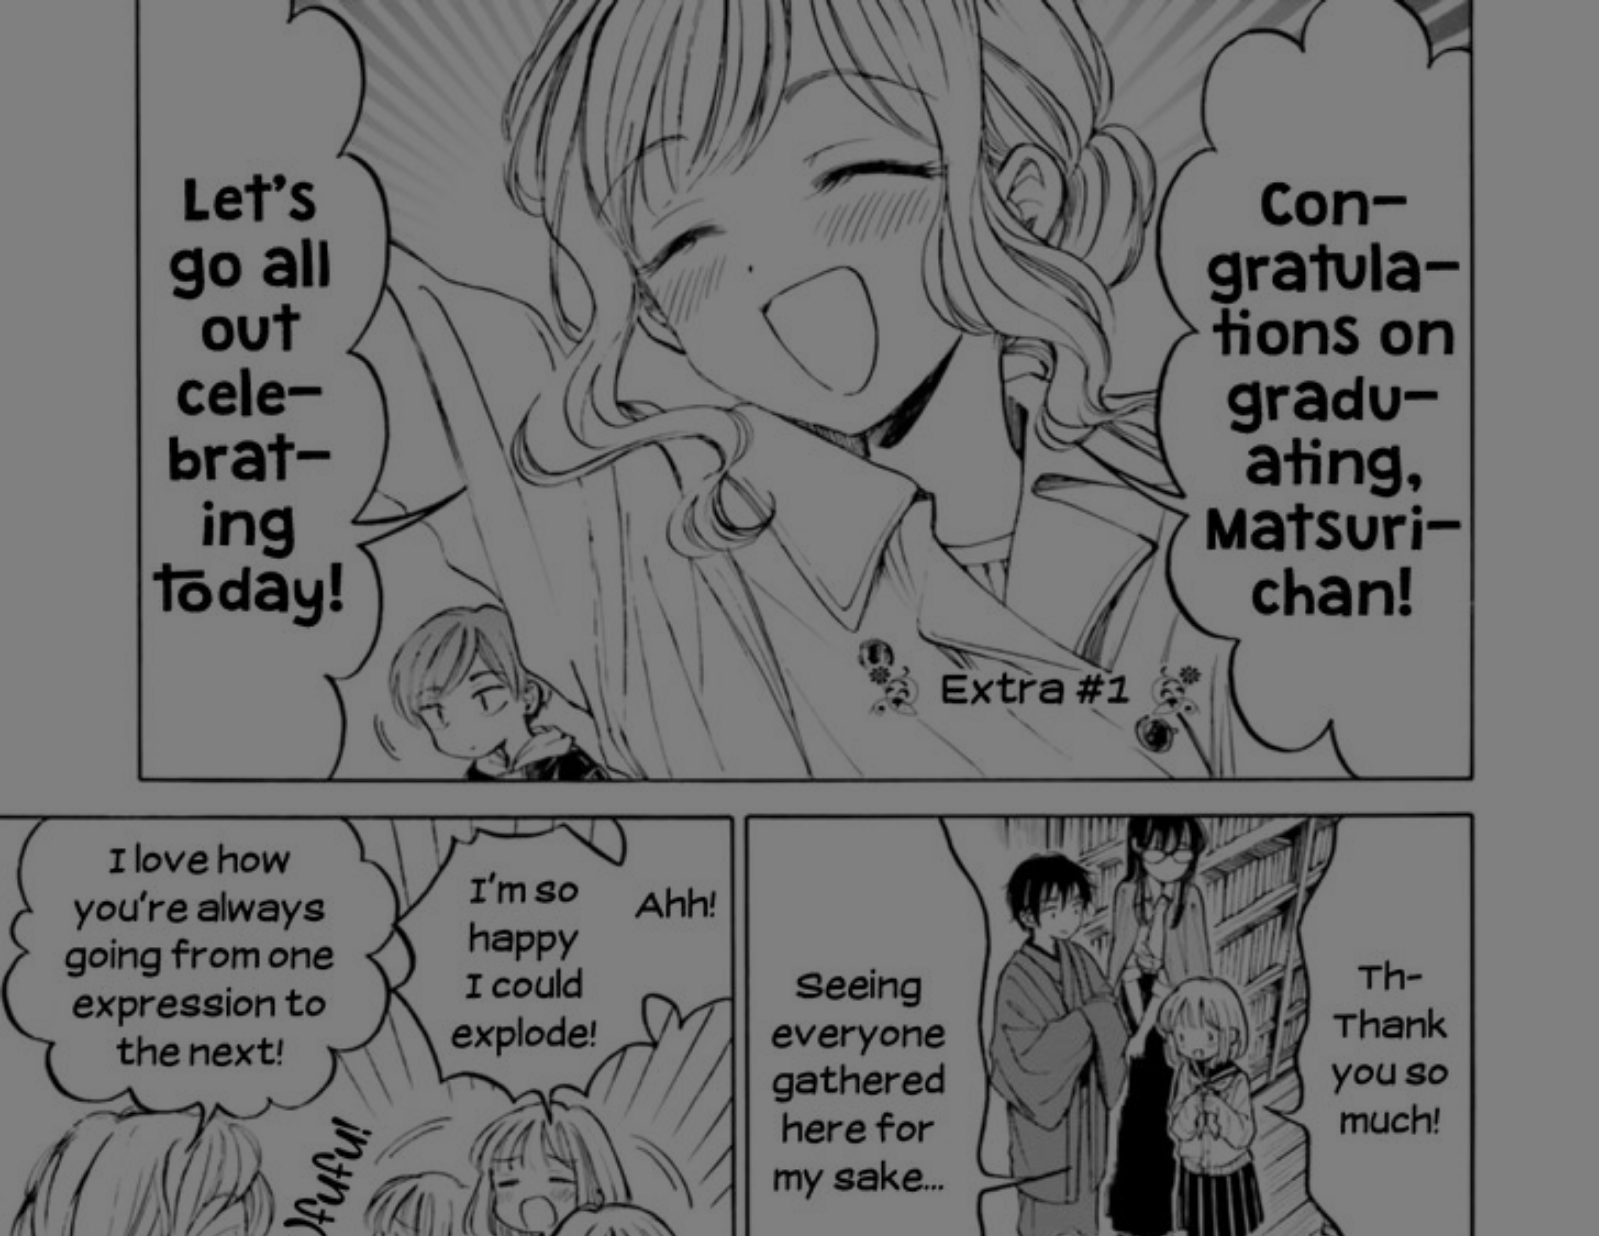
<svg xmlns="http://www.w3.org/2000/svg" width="1599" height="1236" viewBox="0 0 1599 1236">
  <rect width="100%" height="100%" fill="#808080"/>
  <image x="0" y="0" width="1478" height="1236" href="images/1.png"/>
</svg>
